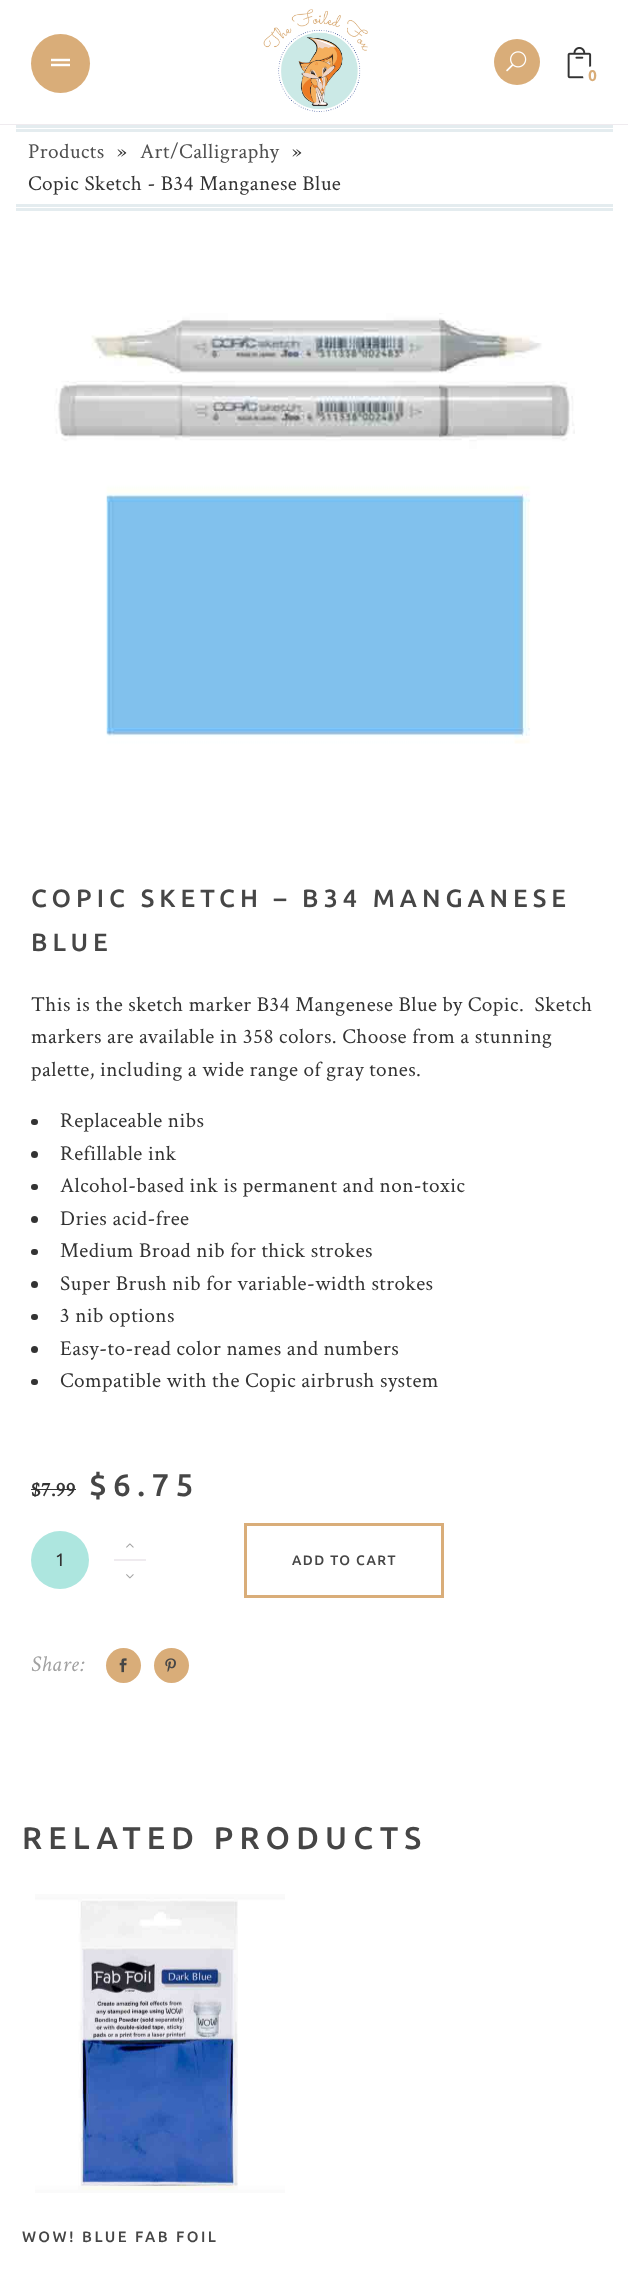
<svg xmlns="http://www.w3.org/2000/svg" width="628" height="2270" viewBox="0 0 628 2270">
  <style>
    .t1 { font: bold 15px Ubuntu; fill: #d9ad79; }
    .t2 { font: 21.25px Crimson Text; letter-spacing: 0.43px; fill: #4f4f4f; }
    .t3 { font: 21.25px Crimson Text; letter-spacing: 0.43px; fill: #333; }
    .t4 { font: 500 25px Ubuntu; letter-spacing: 5px; fill: #464646; }
    .t5 { font: bold 20px Crimson Text; letter-spacing: 0.43px; fill: #333; }
    .t6 { font: 500 31.25px Ubuntu; letter-spacing: 6.25px; fill: #464646; }
    .t7 { font: 18px Ubuntu; fill: #333; }
    .t8 { font: 500 13.75px Ubuntu; letter-spacing: 1.4px; fill: #464646; }
    .t9 { font: italic 22.5px Crimson Text; letter-spacing: 0.5px; fill: #a1a1a1; }
    .t10 { font: 500 15px Ubuntu; letter-spacing: 2.5px; fill: #464646; }
  </style>
  <rect width="100%" height="100%" fill="#fff"/>
  <rect x="0" y="124" width="628" height="1" fill="#efebef"/>
  <circle cx="60.5" cy="63.5" r="29.5" fill="#d9ad79"/>
  <image x="51" y="58" width="19" height="9" href="images/1.png"/>
  <image x="263" y="9" width="105" height="103" href="images/2.png"/>
  <circle cx="517" cy="62" r="23" fill="#d9ad79"/>
  <image x="506" y="51" width="21" height="21" href="images/3.png"/>
  <image x="567" y="47" width="25" height="32" href="images/4.png"/>
  <circle cx="593" cy="76" r="10" fill="#fff"/>
  <text x="588" y="81" class="t1">0</text>
  <rect x="16" y="125" width="597" height="3" fill="#e4ecef"/>
  <rect x="16" y="208" width="597" height="3" fill="#e4ecef"/>
  <rect x="16" y="129" width="597" height="3" fill="#e4ecef"/>
  <rect x="16" y="204" width="597" height="3" fill="#e4ecef"/>
  <text x="28" y="158" class="t2">Products</text>
  <text x="117" y="158" class="t3">»</text>
  <text x="140" y="158" class="t2">Art/Calligraphy</text>
  <text x="292" y="158" class="t3">»</text>
  <text x="28" y="190" class="t3">Copic Sketch - B34 Manganese Blue</text>
  <image x="54" y="313" width="521" height="431" href="images/5.png"/>
  <text x="31" y="907" class="t4">COPIC SKETCH – B34 MANGANESE</text>
  <text x="31" y="951" class="t4">BLUE</text>
  <text x="31" y="1011" class="t3" xml:space="preserve">This is the sketch marker B34 Mangenese Blue by Copic.  Sketch</text>
  <text x="31" y="1043" class="t3">markers are available in 358 colors. Choose from a stunning</text>
  <text x="31" y="1076" class="t3">palette, including a wide range of gray tones.</text>
  <rect x="31" y="1119" width="7" height="6" rx="3" fill="#333"/>
  <text x="60" y="1127" class="t3">Replaceable nibs</text>
  <circle cx="34.5" cy="1154.5" r="3.5" fill="#333"/>
  <text x="60" y="1160" class="t3">Refillable ink</text>
  <rect x="31" y="1184" width="7" height="6" rx="3" fill="#333"/>
  <text x="60" y="1192" class="t3">Alcohol-based ink is permanent and non-toxic</text>
  <circle cx="34.5" cy="1219.5" r="3.5" fill="#333"/>
  <text x="60" y="1225" class="t3">Dries acid-free</text>
  <rect x="31" y="1249" width="7" height="6" rx="3" fill="#333"/>
  <text x="60" y="1257" class="t3">Medium Broad nib for thick strokes</text>
  <circle cx="34.5" cy="1284.5" r="3.5" fill="#333"/>
  <text x="60" y="1290" class="t3">Super Brush nib for variable-width strokes</text>
  <rect x="31" y="1314" width="7" height="6" rx="3" fill="#333"/>
  <text x="60" y="1322" class="t3">3 nib options</text>
  <circle cx="34.5" cy="1349.5" r="3.5" fill="#333"/>
  <text x="60" y="1355" class="t3">Easy-to-read color names and numbers</text>
  <rect x="31" y="1379" width="7" height="6" rx="3" fill="#333"/>
  <text x="60" y="1387" class="t3">Compatible with the Copic airbrush system</text>
  <text x="31" y="1496" class="t5">$7.99</text>
  <rect x="31" y="1489" width="45" height="1" fill="#333"/>
  <text x="89" y="1496" class="t6">$6.75</text>
  <image x="126" y="1543" width="8" height="5" href="images/6.png"/>
  <circle cx="60" cy="1560" r="29" fill="#ade6df"/>
  <text x="55" y="1566" class="t7">1</text>
  <rect x="114" y="1559" width="32" height="2" fill="#efebef"/>
  <image x="126" y="1574" width="8" height="5" href="images/7.png"/>
  <rect x="245.5" y="1524.5" width="197" height="72" fill="none" stroke="#d9ad79" stroke-width="3"/>
  <text x="292" y="1565" class="t8">ADD TO CART</text>
  <text x="31" y="1671" class="t9">Share:</text>
  <circle cx="123.5" cy="1665.5" r="17.5" fill="#d9ad79"/>
  <image x="119" y="1658" width="8" height="15" href="images/8.png"/>
  <circle cx="171.5" cy="1665.5" r="17.5" fill="#d9ad79"/>
  <image x="165" y="1658" width="11" height="14" href="images/9.png"/>
  <text x="22" y="1849" class="t6">RELATED PRODUCTS</text>
  <image x="35" y="1894" width="250" height="299" href="images/10.png"/>
  <text x="22" y="2242" class="t10">WOW! BLUE FAB FOIL</text>
</svg>
